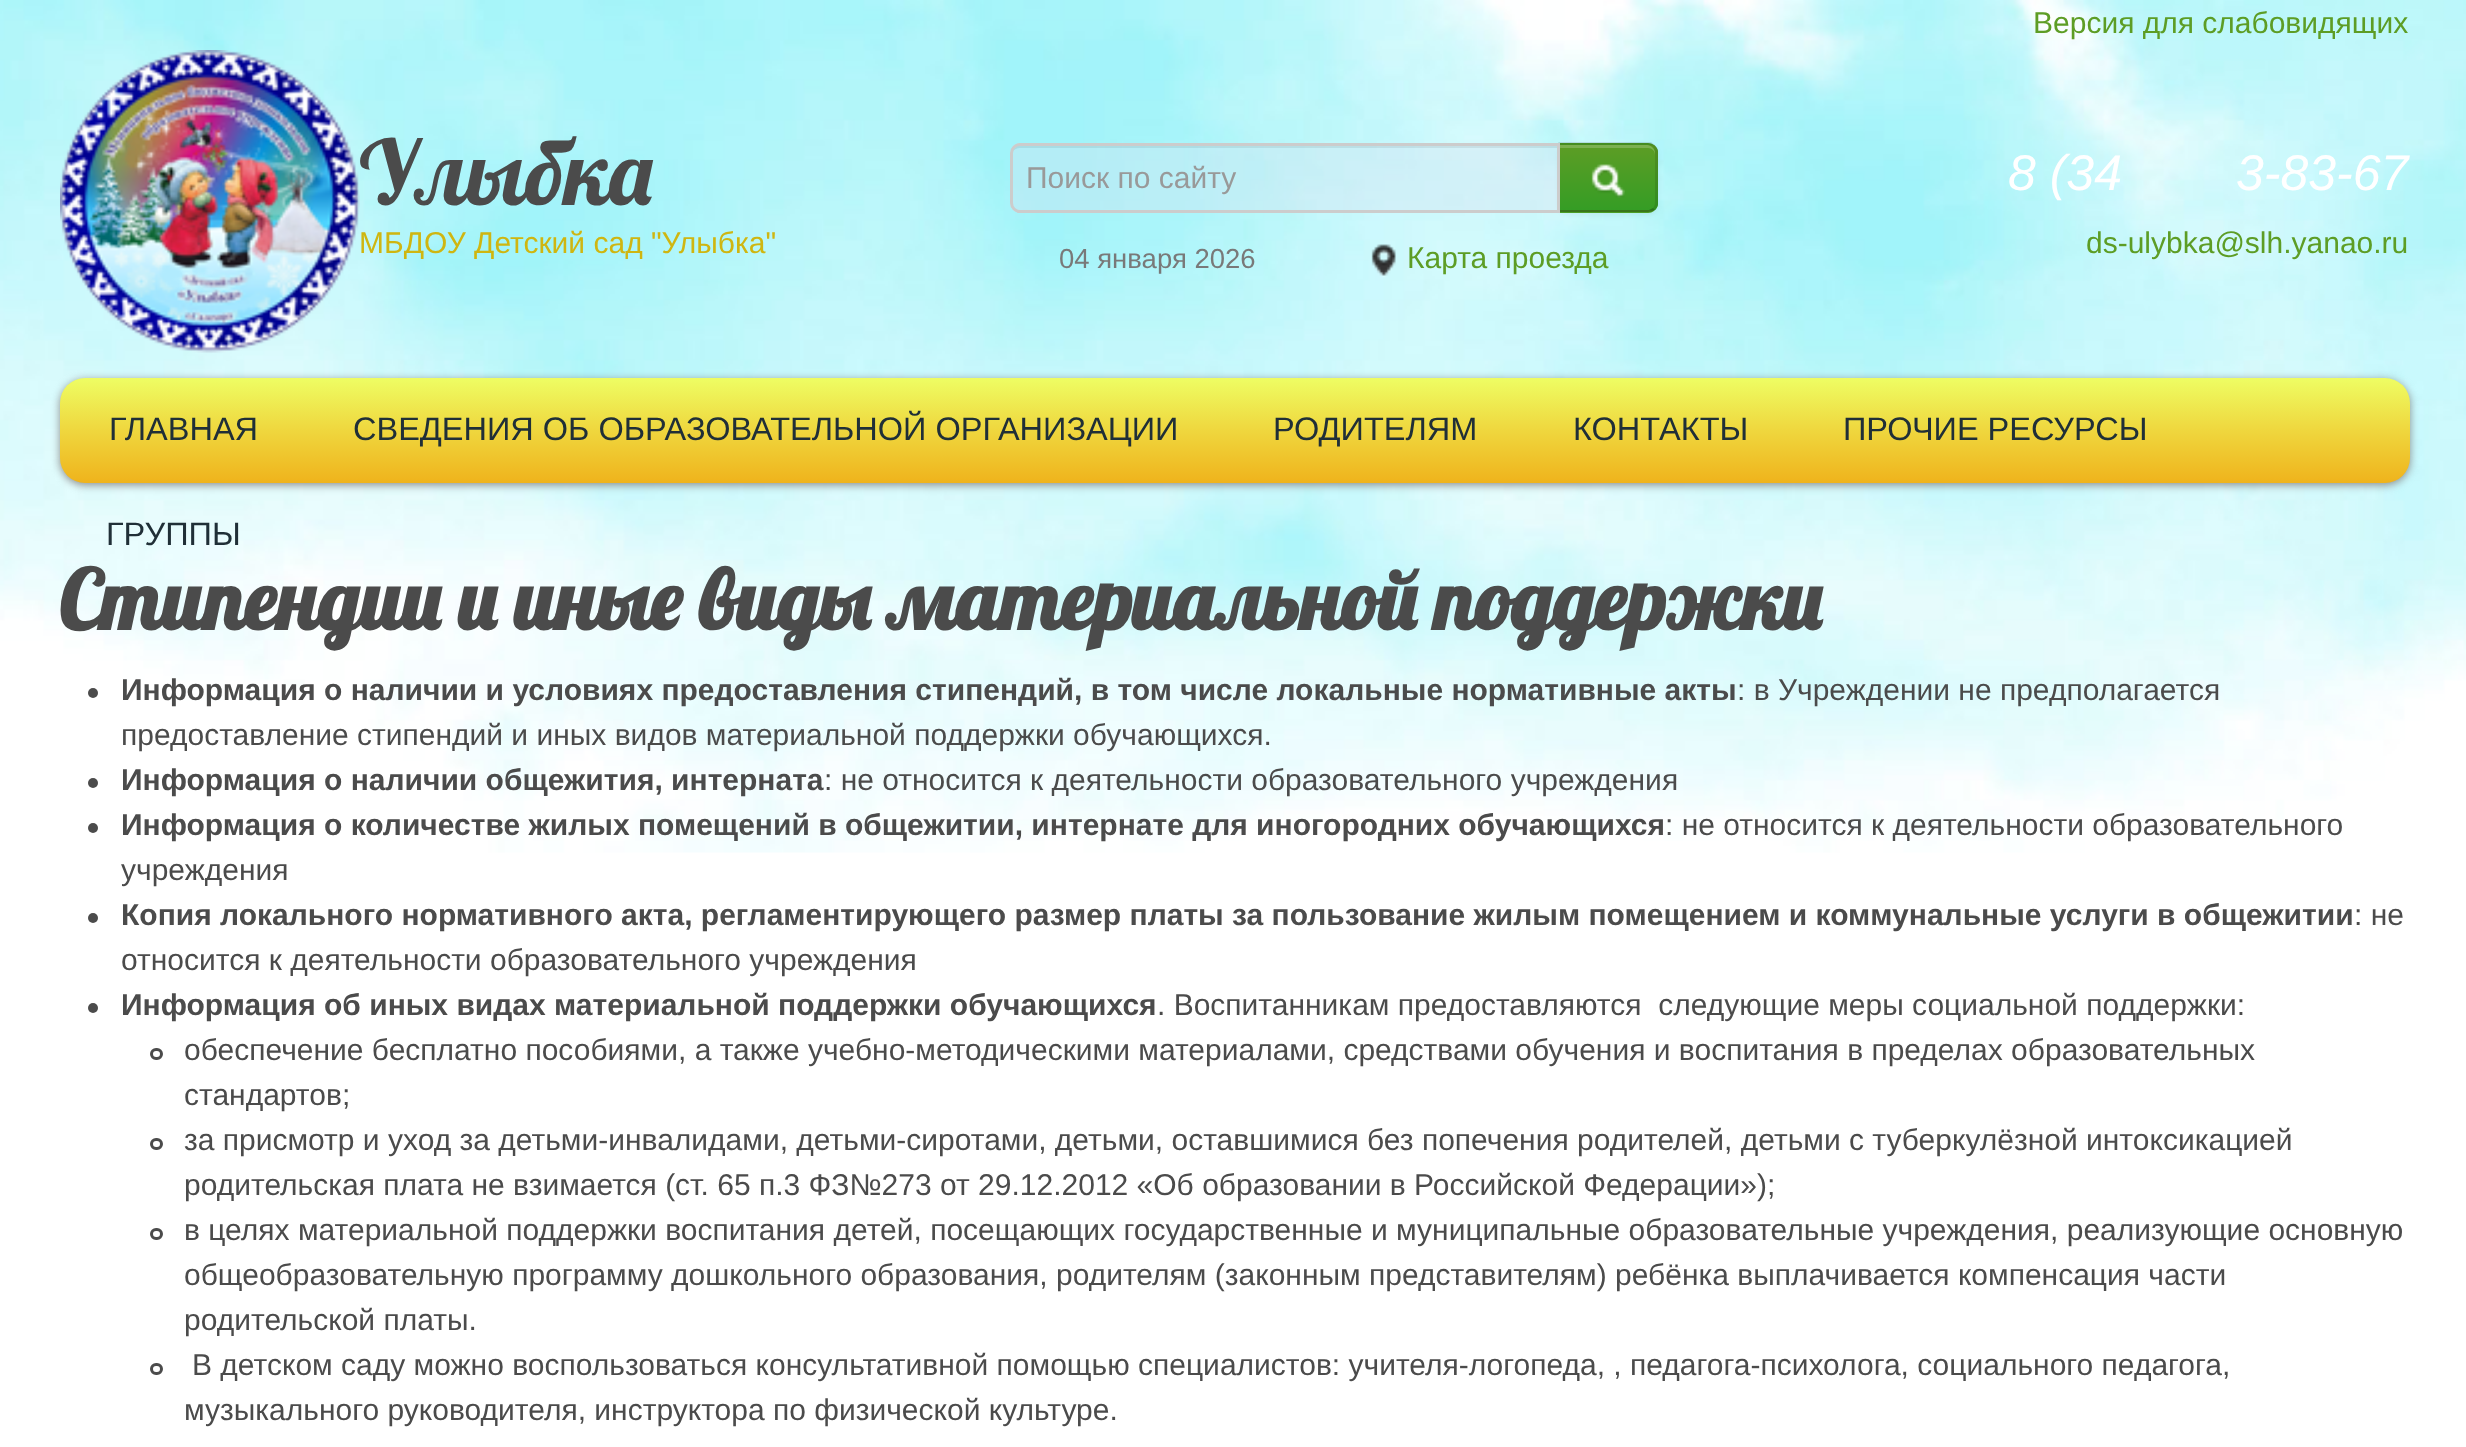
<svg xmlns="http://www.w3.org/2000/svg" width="2466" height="1447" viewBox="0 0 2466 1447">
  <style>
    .t1 { font: 30px Liberation Sans; fill: #5d9d25; }
    .t2 { font: 90px Lobster; fill: #4b4b4b; }
    .t3 { font: 30px Liberation Sans; fill: #cfb611; }
    .t4 { font: 30px Liberation Sans; fill: #999; }
    .t5 { font: 27.5px Liberation Sans; fill: #797979; }
    .t6 { font: italic 50px Liberation Sans; fill: #fff; }
    .t7 { font: 32.5px Liberation Sans; fill: #202f37; }
    .t8 { font: bold 82.5px Lobster; fill: #4b4b4b; }
    .t9 { font: bold 30px Liberation Sans; fill: #4b4b4b; }
    .t10 { font: 30px Liberation Sans; fill: #4b4b4b; }
  </style>
  <defs>
    <clipPath id="clip1"><path d="M1558 143H1648C1653.5 143 1658 147.5 1658 153V203C1658 208.5 1653.5 213 1648 213H1558Z"/></clipPath>
    <linearGradient id="g1" gradientUnits="userSpaceOnUse" x1="1608" y1="145" x2="1608" y2="210"><stop offset="0" stop-color="#5d9d25"/><stop offset="1" stop-color="#359d25"/></linearGradient>
    <linearGradient id="g2" gradientUnits="userSpaceOnUse" x1="1235" y1="377" x2="1235" y2="483"><stop offset="0" stop-color="#eefe64"/><stop offset="0.5" stop-color="#efd73e"/><stop offset="1" stop-color="#efb31c"/></linearGradient>
  </defs>
  <rect width="100%" height="100%" fill="#fff"/>
  <image x="0" y="0" width="2466" height="853" href="images/1.png"/>
  <text x="2033" y="33" class="t1">Версия для слабовидящих</text>
  <image x="60" y="50" width="300" height="303" href="images/2.png"/>
  <text x="359" y="205" class="t2">Улыбка</text>
  <text x="359" y="253" class="t3">МБДОУ Детский сад "Улыбка"</text>
  <rect x="1558" y="145" width="100" height="70" rx="10" fill="#0000000d" filter="blur(2.5px)"/>
  <path d="M1558 143H1648C1653.5 143 1658 147.5 1658 153V203C1658 208.5 1653.5 213 1648 213H1558Z" fill="#4d9d25"/>
  <g clip-path="url(#clip1)">
    <rect x="1560" y="145" width="98" height="65" fill="url(#g1)"/>
  </g>
  <path d="M1560 148H1648C1652 148 1655 151 1655 155V153C1655 149 1651 145 1647 145H1560Z" fill="#ffffff33"/>
  <path d="M1560 145L1558 142H1651L1655 145L1653 147C1652 146 1650 145 1648 145Z" fill="#0000001a"/>
  <path d="M1658 205C1657 207 1656 208 1655 210L1653 208C1654 207 1655 205 1655 202V152C1655 150 1654 148 1653 147L1655 145L1658 149Z" fill="#0000001a"/>
  <path d="M1655 210C1653 211 1650 212 1648 212H1558L1560 210H1649L1653 208Z" fill="#00000040"/>
  <path d="M1020 143H1560V213H1020C1014.5 213 1010 208.5 1010 203V153C1010 147.5 1014.5 143 1020 143Z" fill="#dce1f054"/>
  <path d="M1020 148H1558V145H1021C1017 145 1014 148 1013 151C1015 149 1017 148 1020 148Z" fill="#00000012"/>
  <path d="M1020 144.5H1558.5V211.5H1020C1015.5 211.5 1011.5 207.5 1011.5 203V153C1011.5 148.5 1015.5 144.5 1020 144.5Z" fill="none" stroke="#ccc" stroke-width="3"/>
  <text x="1026" y="188" class="t4">Поиск по сайту</text>
  <image x="1591" y="164" width="34" height="34" href="images/3.png"/>
  <text x="1059" y="268" class="t5">04 января 2026</text>
  <image x="1371" y="244" width="25" height="34" href="images/4.png"/>
  <text x="1407" y="268" class="t1">Карта проезда</text>
  <text x="2008" y="190" class="t6">8 (34</text>
  <text x="2236" y="190" class="t6">3-83-67</text>
  <text x="2086" y="253" class="t1">ds-ulybka@slh.yanao.ru</text>
  <rect x="60" y="380" width="2350" height="105" rx="25" fill="#8b8b8b" filter="blur(4px)"/>
  <rect x="60" y="378" width="2350" height="105" rx="25" fill="url(#g2)"/>
  <text x="109" y="440" class="t7">ГЛАВНАЯ</text>
  <text x="353" y="440" class="t7">СВЕДЕНИЯ ОБ ОБРАЗОВАТЕЛЬНОЙ ОРГАНИЗАЦИИ</text>
  <text x="1273" y="440" class="t7">РОДИТЕЛЯМ</text>
  <text x="1573" y="440" class="t7">КОНТАКТЫ</text>
  <text x="1843" y="440" class="t7">ПРОЧИЕ РЕСУРСЫ</text>
  <text x="106" y="545" class="t7">ГРУППЫ</text>
  <text x="59" y="630" class="t8">Стипендии и иные виды материальной поддержки</text>
  <circle cx="93" cy="693" r="5" fill="#4b4b4b"/>
  <text x="121" y="700" class="t9">Информация о наличии и условиях предоставления стипендий, в том числе локальные нормативные акты</text>
  <text x="1737" y="700" class="t10">: в Учреждении не предполагается</text>
  <text x="121" y="745" class="t10">предоставление стипендий и иных видов материальной поддержки обучающихся.</text>
  <circle cx="93" cy="783" r="5" fill="#4b4b4b"/>
  <text x="121" y="790" class="t9">Информация о наличии общежития, интерната</text>
  <text x="824" y="790" class="t10">: не относится к деятельности образовательного учреждения</text>
  <circle cx="93" cy="828" r="5" fill="#4b4b4b"/>
  <text x="121" y="835" class="t9">Информация о количестве жилых помещений в общежитии, интернате для иногородних обучающихся</text>
  <text x="1665" y="835" class="t10">: не относится к деятельности образовательного</text>
  <text x="121" y="880" class="t10">учреждения</text>
  <circle cx="93" cy="918" r="5" fill="#4b4b4b"/>
  <text x="121" y="925" class="t9">Копия локального нормативного акта, регламентирующего размер платы за пользование жилым помещением и коммунальные услуги в общежитии</text>
  <text x="2354" y="925" class="t10">: не</text>
  <text x="121" y="970" class="t10">относится к деятельности образовательного учреждения</text>
  <circle cx="93" cy="1008" r="5" fill="#4b4b4b"/>
  <text x="121" y="1015" class="t9">Информация об иных видах материальной поддержки обучающихся</text>
  <text x="1157" y="1015" class="t10" xml:space="preserve">. Воспитанникам предоставляются  следующие меры социальной поддержки:</text>
  <rect x="151.5" y="1049.5" width="10" height="9" rx="4.5" fill="none" stroke="#4b4b4b" stroke-width="3"/>
  <text x="184" y="1060" class="t10">обеспечение бесплатно пособиями, а также учебно-методическими материалами, средствами обучения и воспитания в пределах образовательных</text>
  <text x="184" y="1105" class="t10">стандартов;</text>
  <rect x="151.5" y="1139.5" width="10" height="9" rx="4.5" fill="none" stroke="#4b4b4b" stroke-width="3"/>
  <text x="184" y="1150" class="t10">за присмотр и уход за детьми-инвалидами, детьми-сиротами, детьми, оставшимися без попечения родителей, детьми с туберкулёзной интоксикацией</text>
  <text x="184" y="1195" class="t10">родительская плата не взимается (ст. 65 п.3 ФЗ№273 от 29.12.2012 «Об образовании в Российской Федерации»);</text>
  <rect x="151.5" y="1229.5" width="10" height="9" rx="4.5" fill="none" stroke="#4b4b4b" stroke-width="3"/>
  <text x="184" y="1240" class="t10">в целях материальной поддержки воспитания детей, посещающих государственные и муниципальные образовательные учреждения, реализующие основную</text>
  <text x="184" y="1285" class="t10">общеобразовательную программу дошкольного образования, родителям (законным представителям) ребёнка выплачивается компенсация части</text>
  <text x="184" y="1330" class="t10">родительской платы.</text>
  <rect x="151.5" y="1364.5" width="10" height="9" rx="4.5" fill="none" stroke="#4b4b4b" stroke-width="3"/>
  <text x="192" y="1375" class="t10">В детском саду можно воспользоваться консультативной помощью специалистов: учителя-логопеда, , педагога-психолога, социального педагога,</text>
  <text x="184" y="1420" class="t10">музыкального руководителя, инструктора по физической культуре.</text>
</svg>
